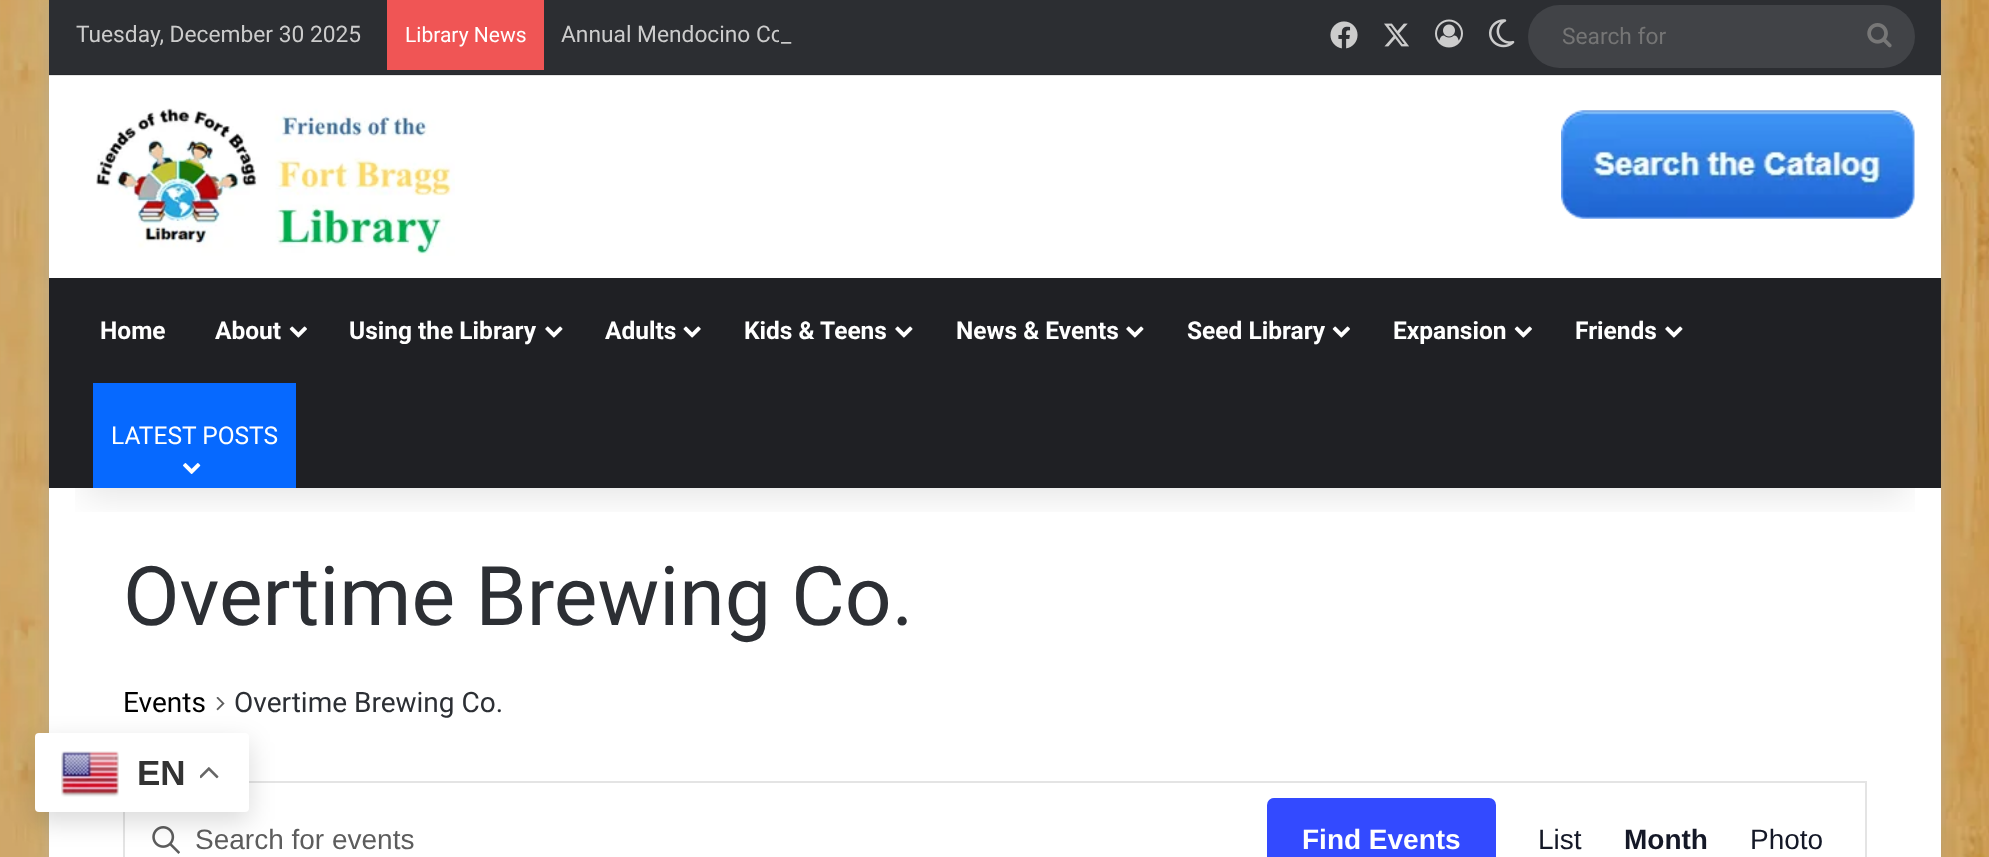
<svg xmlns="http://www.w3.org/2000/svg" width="1989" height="857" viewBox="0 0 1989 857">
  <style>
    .t1 { font: 22.75px Roboto; fill: #ccc; }
    .t2 { font: 21px Roboto; fill: #fff; }
    .t3 { font: 22.75px Roboto; fill: #757575; }
    .t4 { font: bold 24.5px Roboto; fill: #fff; }
    .t5 { font: 24.5px Roboto; fill: #fff; }
    .t6 { font: 82.25px Roboto; fill: #2c2f34; }
    .t7 { font: 28px Roboto; fill: #000; }
    .t8 { font: 28px Roboto; fill: #2c2f34; }
    .t9 { font: 28px Liberation Sans; fill: #5d5d5d; }
    .t10 { font: bold 28px Liberation Sans; fill: #fff; }
    .t11 { font: 28px Liberation Sans; fill: #141827; }
    .t12 { font: bold 28px Liberation Sans; fill: #141827; }
    .t13 { font: bold 35px Liberation Sans; fill: #333; }
  </style>
  <defs>
    <clipPath id="clip1"><rect x="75" y="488" width="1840" height="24"/></clipPath>
  </defs>
  <rect width="100%" height="100%" fill="#fff"/>
  <image x="0" y="0" width="1989" height="857" href="images/1.png"/>
  <rect x="49" y="2" width="1892" height="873" fill="#ababab80" filter="blur(6px)"/>
  <rect x="49" y="75" width="1892" height="782" fill="#fff"/>
  <g clip-path="url(#clip1)">
    <rect x="84" y="79" width="1822" height="418" fill="#0000001a" filter="blur(17.5px)"/>
  </g>
  <rect x="49" y="0" width="1892" height="75" fill="#2c2e32"/>
  <rect x="49" y="74" width="1892" height="2" fill="#0000001a"/>
  <text x="76" y="42" class="t1">Tuesday, December 30 2025</text>
  <rect x="387" y="0" width="157" height="70" fill="#f05555"/>
  <text x="405" y="42" class="t2">Library News</text>
  <text x="561" y="42" class="t1">Annual Mendocino Co</text>
  <rect x="779" y="30" width="5" height="12" fill="#2c2e32"/>
  <text x="781" y="42" class="t1">_</text>
  <image x="1330" y="21" width="28" height="28" href="images/2.png"/>
  <image x="1384" y="23" width="25" height="24" href="images/3.png"/>
  <image x="1435" y="19" width="28" height="29" href="images/4.png"/>
  <image x="1489" y="19" width="26" height="29" href="images/5.png"/>
  <rect x="1528" y="5" width="387" height="63" rx="31.5" fill="#414347"/>
  <text x="1562" y="44" class="t3">Search for</text>
  <image x="1867" y="23" width="25" height="25" href="images/6.png"/>
  <image x="96" y="108" width="359" height="148" href="images/7.png"/>
  <image x="1561" y="110" width="354" height="109" href="images/8.png"/>
  <rect x="49" y="278" width="1892" height="210" fill="#1f2024"/>
  <text x="100" y="339" class="t4">Home</text>
  <text x="215" y="339" class="t4">About</text>
  <image x="289" y="326" width="18" height="12" href="images/9.png"/>
  <text x="349" y="339" class="t4">Using the Library</text>
  <image x="545" y="326" width="18" height="12" href="images/10.png"/>
  <text x="605" y="339" class="t4">Adults</text>
  <image x="683" y="326" width="18" height="12" href="images/11.png"/>
  <text x="744" y="339" class="t4">Kids &amp; Teens</text>
  <image x="895" y="326" width="18" height="12" href="images/10.png"/>
  <text x="956" y="339" class="t4">News &amp; Events</text>
  <image x="1126" y="326" width="18" height="12" href="images/10.png"/>
  <text x="1187" y="339" class="t4">Seed Library</text>
  <image x="1332" y="326" width="18" height="12" href="images/9.png"/>
  <text x="1393" y="339" class="t4">Expansion</text>
  <image x="1514" y="326" width="18" height="12" href="images/9.png"/>
  <text x="1575" y="339" class="t4">Friends</text>
  <image x="1665" y="326" width="18" height="12" href="images/10.png"/>
  <rect x="93" y="383" width="203" height="105" fill="#0669ff"/>
  <text x="111" y="444" class="t5">LATEST POSTS</text>
  <image x="183" y="463" width="18" height="11" href="images/12.png"/>
  <text x="123" y="625" class="t6">Overtime Brewing Co.</text>
  <text x="123" y="712" class="t7">Events</text>
  <image x="216" y="697" width="9" height="14" href="images/13.png"/>
  <text x="234" y="712" class="t8">Overtime Brewing Co.</text>
  <rect x="124" y="782" width="1742" height="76" fill="none" stroke="#e4e4e4" stroke-width="2"/>
  <image x="152" y="826" width="28" height="28" href="images/14.png"/>
  <text x="195" y="849" class="t9">Search for events</text>
  <rect x="1267" y="798" width="229" height="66" rx="7" fill="#334aff"/>
  <text x="1302" y="849" class="t10">Find Events</text>
  <text x="1538" y="849" class="t11">List</text>
  <text x="1624" y="849" class="t12">Month</text>
  <text x="1750" y="849" class="t11">Photo</text>
  <rect x="35" y="742" width="214" height="79" rx="4" fill="#00000026" filter="blur(13px)"/>
  <rect x="35" y="733" width="214" height="79" rx="4" fill="#fff"/>
  <image x="61" y="751" width="58" height="46" href="images/15.png"/>
  <text x="137" y="785" class="t13">EN</text>
  <image x="200" y="767" width="19" height="12" href="images/16.png"/>
</svg>
